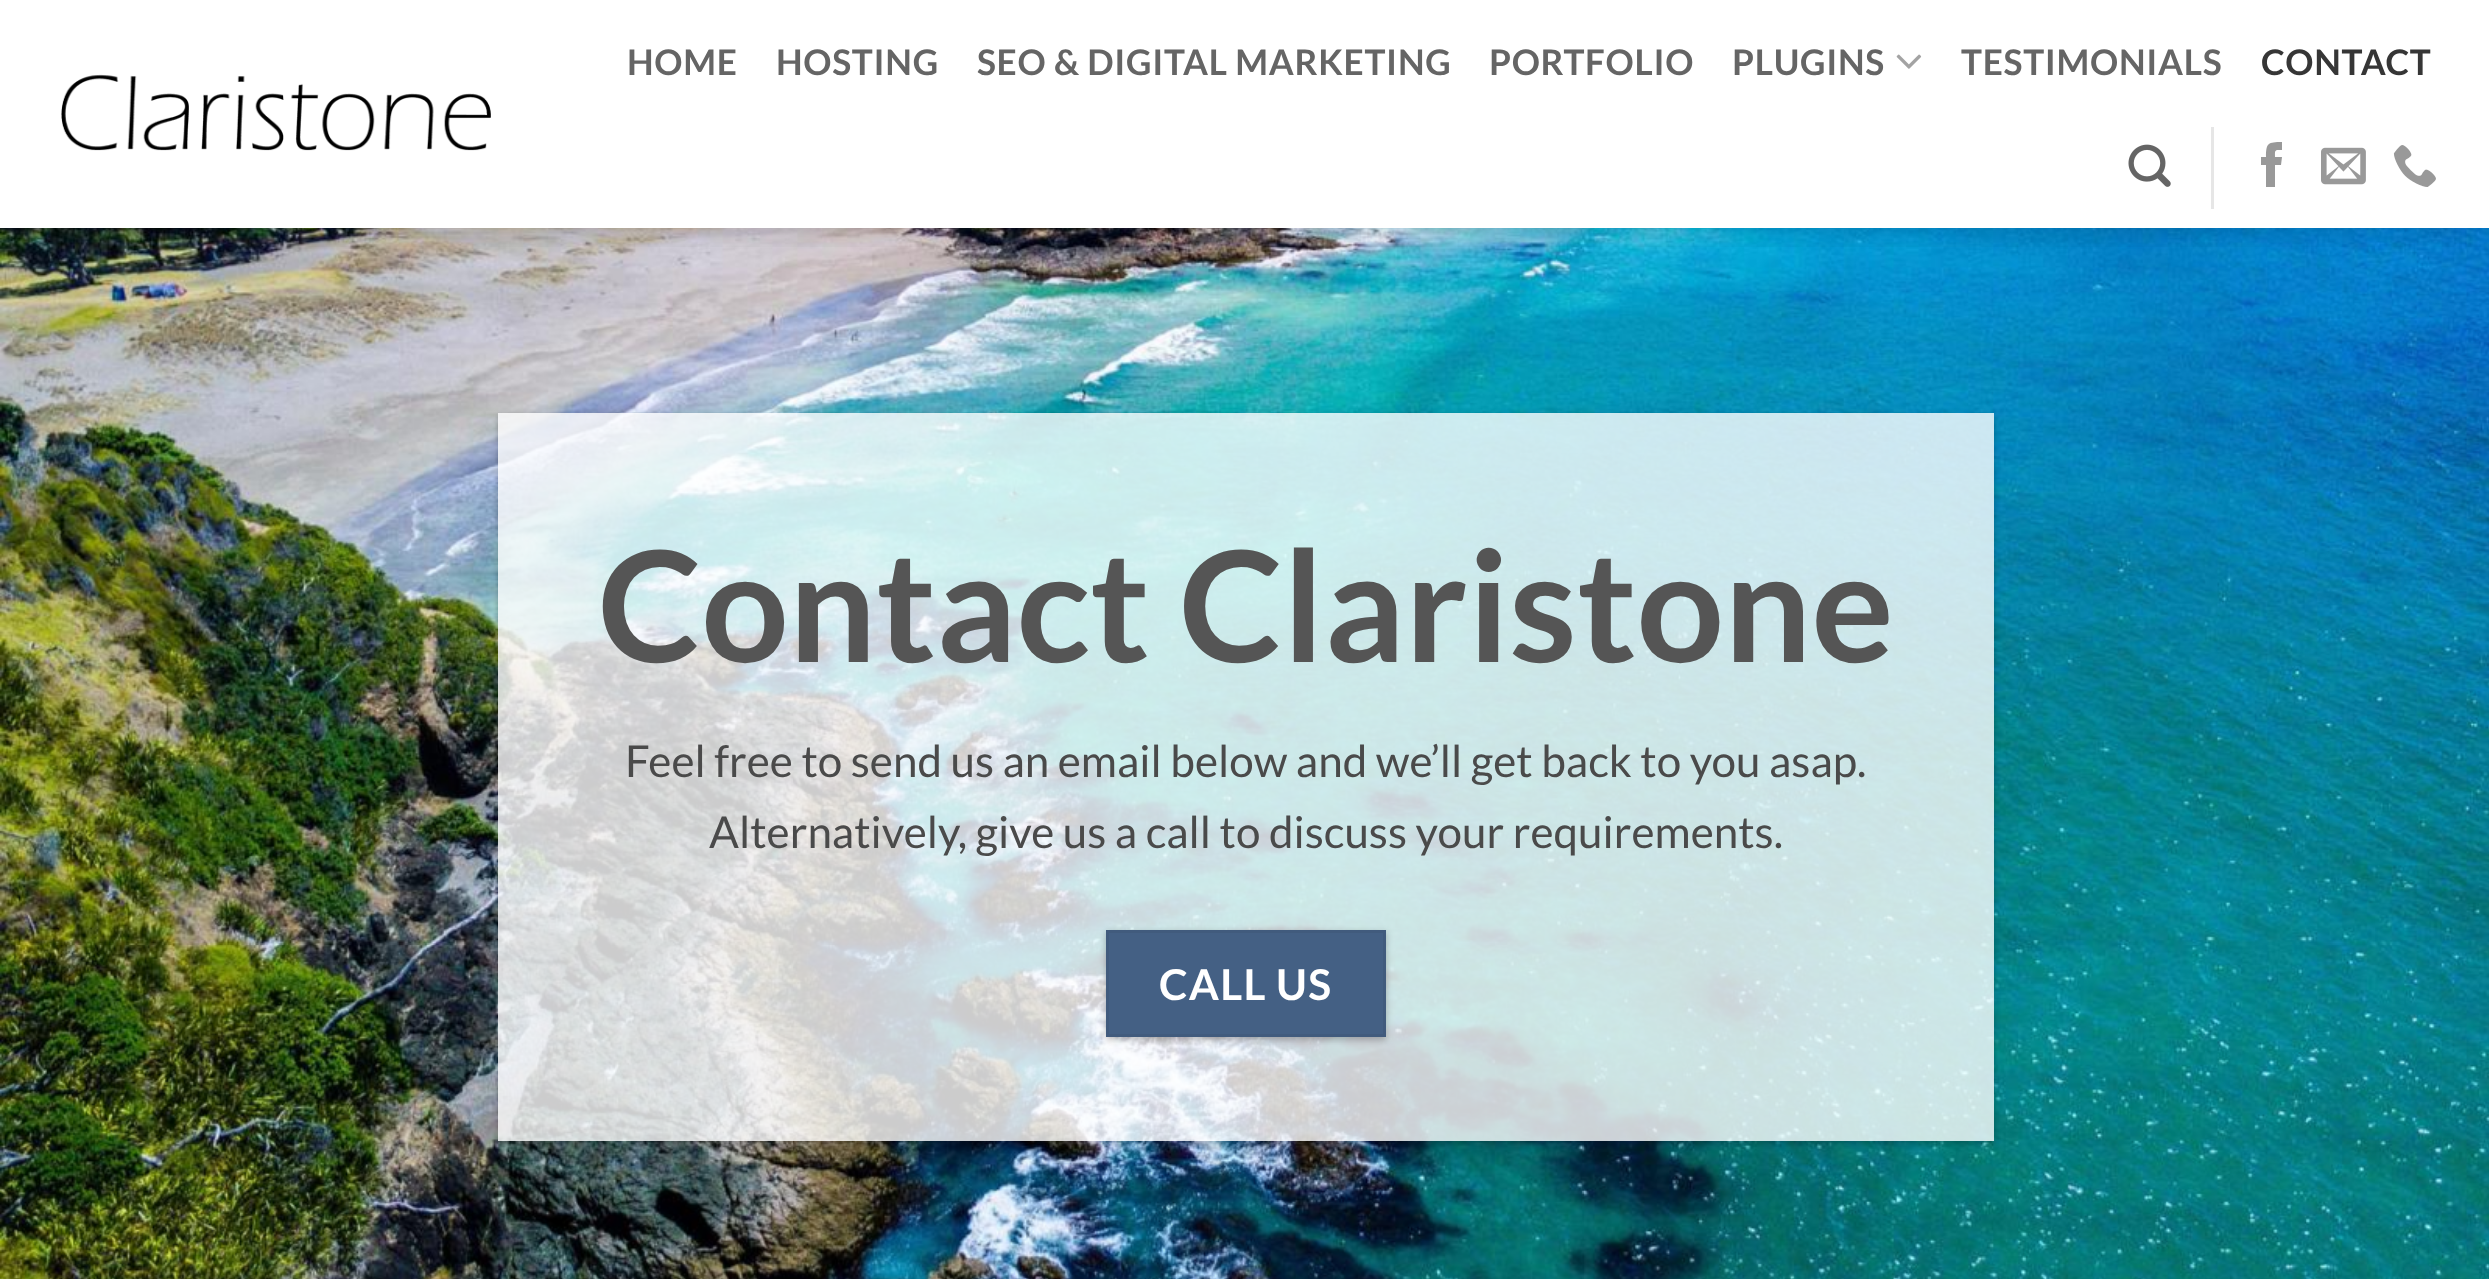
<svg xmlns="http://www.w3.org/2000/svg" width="2489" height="1279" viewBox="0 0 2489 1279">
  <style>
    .t1 { font: bold 35.25px Lato; letter-spacing: 0.7px; fill: #656565; }
    .t2 { font: bold 35.25px Lato; letter-spacing: 0.7px; fill: #363636; }
    .t3 { font: bold 154px Lato; fill: #555; }
    .t4 { font: 44px Lato; fill: #4a4a4a; }
    .t5 { font: bold 42.5px Lato; letter-spacing: 1.25px; fill: #fff; }
  </style>
  <defs>
    <clipPath id="clip1"><rect x="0" y="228" width="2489" height="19"/></clipPath>
    <clipPath id="clip2"><path d="M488 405H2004V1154H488ZM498 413H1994V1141H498Z" clip-rule="evenodd"/></clipPath>
  </defs>
  <rect width="100%" height="100%" fill="#fff"/>
  <image x="0" y="228" width="2489" height="1051" href="images/6.png"/>
  <g clip-path="url(#clip1)">
    <rect x="3" y="3" width="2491" height="228" fill="#00000026" filter="blur(14px)"/>
  </g>
  <text x="627" y="75" class="t1">HOME</text>
  <text x="776" y="75" class="t1">HOSTING</text>
  <text x="977" y="75" class="t1">SEO &amp; DIGITAL MARKETING</text>
  <text x="1489" y="75" class="t1">PORTFOLIO</text>
  <text x="1732" y="75" class="t1">PLUGINS</text>
  <image x="1896" y="54" width="26" height="15" href="images/1.png"/>
  <text x="1961" y="75" class="t1">TESTIMONIALS</text>
  <text x="2261" y="75" class="t2">CONTACT</text>
  <image x="2128" y="144" width="43" height="43" href="images/2.png"/>
  <rect x="2211" y="127" width="3" height="82" fill="#e6e6e6"/>
  <path d="M2275 187H2266V165H2261V157H2266C2266 143 2268 142 2282 142V150C2274 150 2275 150 2275 157H2282L2281 165H2275Z" fill="#999"/>
  <image x="2321" y="147" width="45" height="38" href="images/3.png"/>
  <image x="2393" y="145" width="43" height="42" href="images/4.png"/>
  <image x="61" y="74" width="430" height="77" href="images/5.png"/>
  <g clip-path="url(#clip2)">
    <rect x="498" y="415" width="1496" height="729" fill="#0000003d" filter="blur(3px)"/>
  </g>
  <rect x="498" y="413" width="1496" height="728" fill="#ffffffcc"/>
  <text x="598" y="662" class="t3">Contact Claristone</text>
  <text x="625" y="777" class="t4">Feel free to send us an email below and we’ll get back to you asap.</text>
  <text x="709" y="848" class="t4">Alternatively, give us a call to discuss your requirements.</text>
  <rect x="1106" y="932" width="280" height="108" fill="#0000003d" filter="blur(3px)"/>
  <rect x="1107.5" y="931.5" width="277" height="104" fill="#446084" stroke="#415b7d" stroke-width="3"/>
  <text x="1159" y="1000" class="t5">CALL US</text>
</svg>
